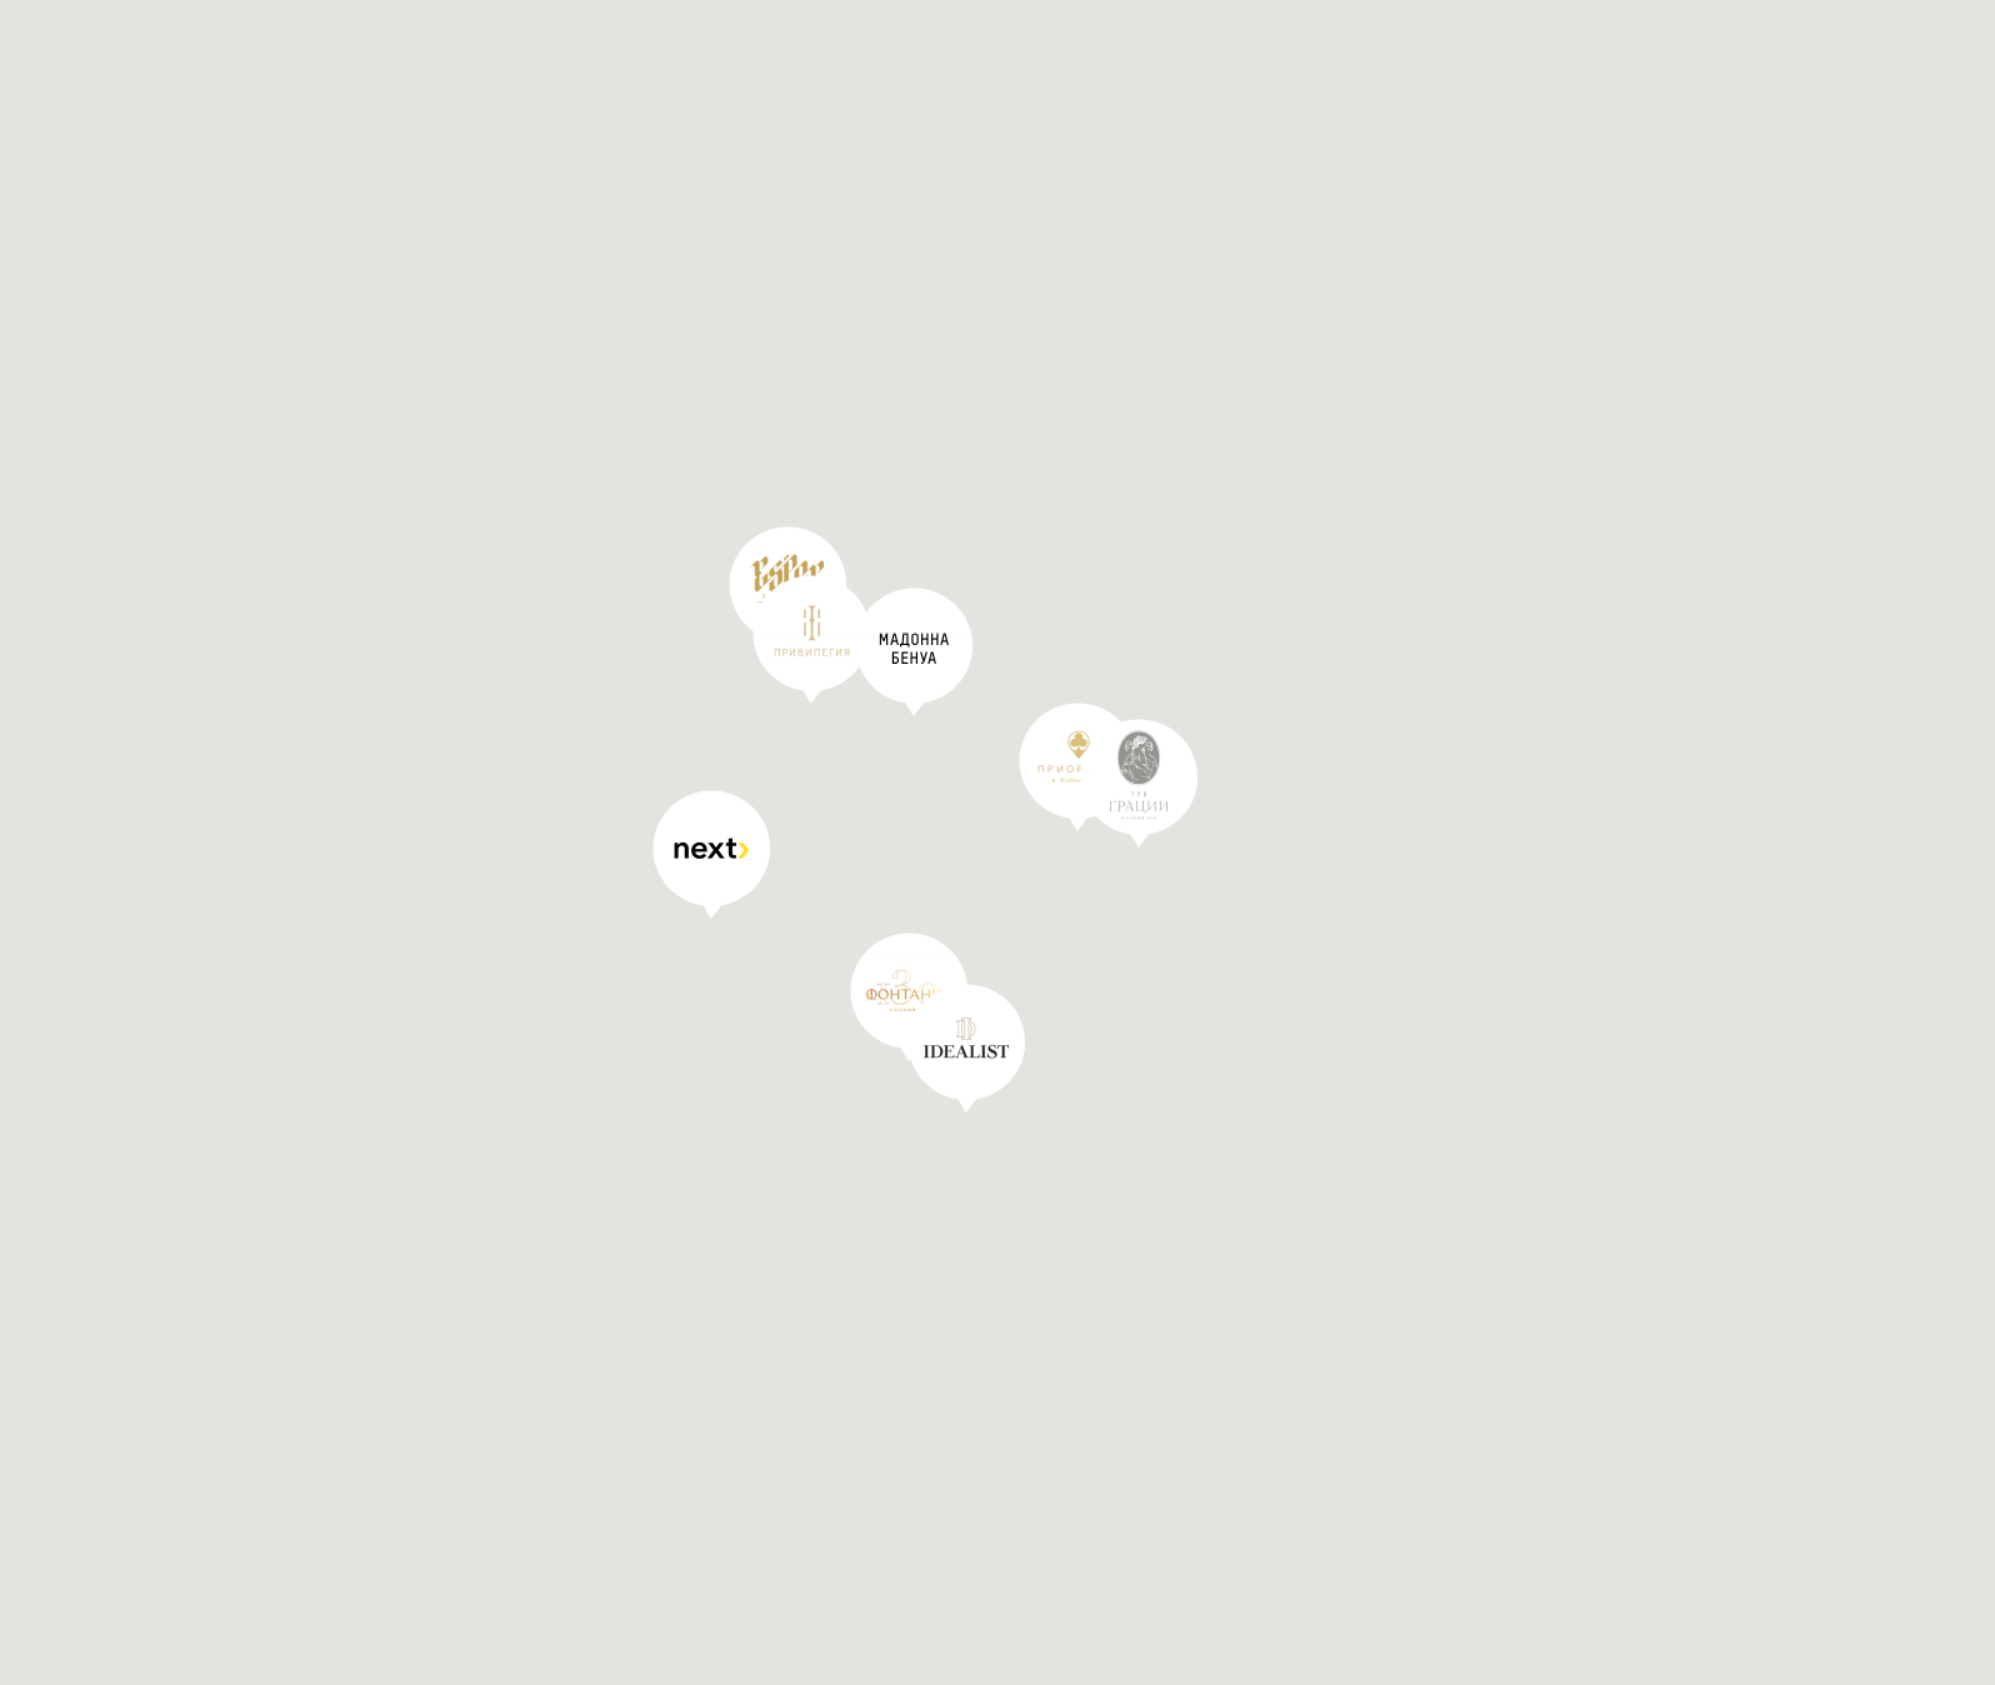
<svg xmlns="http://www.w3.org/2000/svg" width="1995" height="1685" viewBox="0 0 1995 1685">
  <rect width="100%" height="100%" fill="#e5e3df"/>
  <image x="655" y="633" width="318" height="321" href="images/3.png"/>
  <image x="729" y="526" width="243" height="108" href="images/1.png"/>
  <image x="652" y="834" width="3" height="28" href="images/2.png"/>
  <image x="1019" y="702" width="179" height="146" href="images/4.png"/>
  <image x="850" y="953" width="125" height="160" href="images/5.png"/>
  <image x="975" y="985" width="50" height="116" href="images/6.png"/>
</svg>
